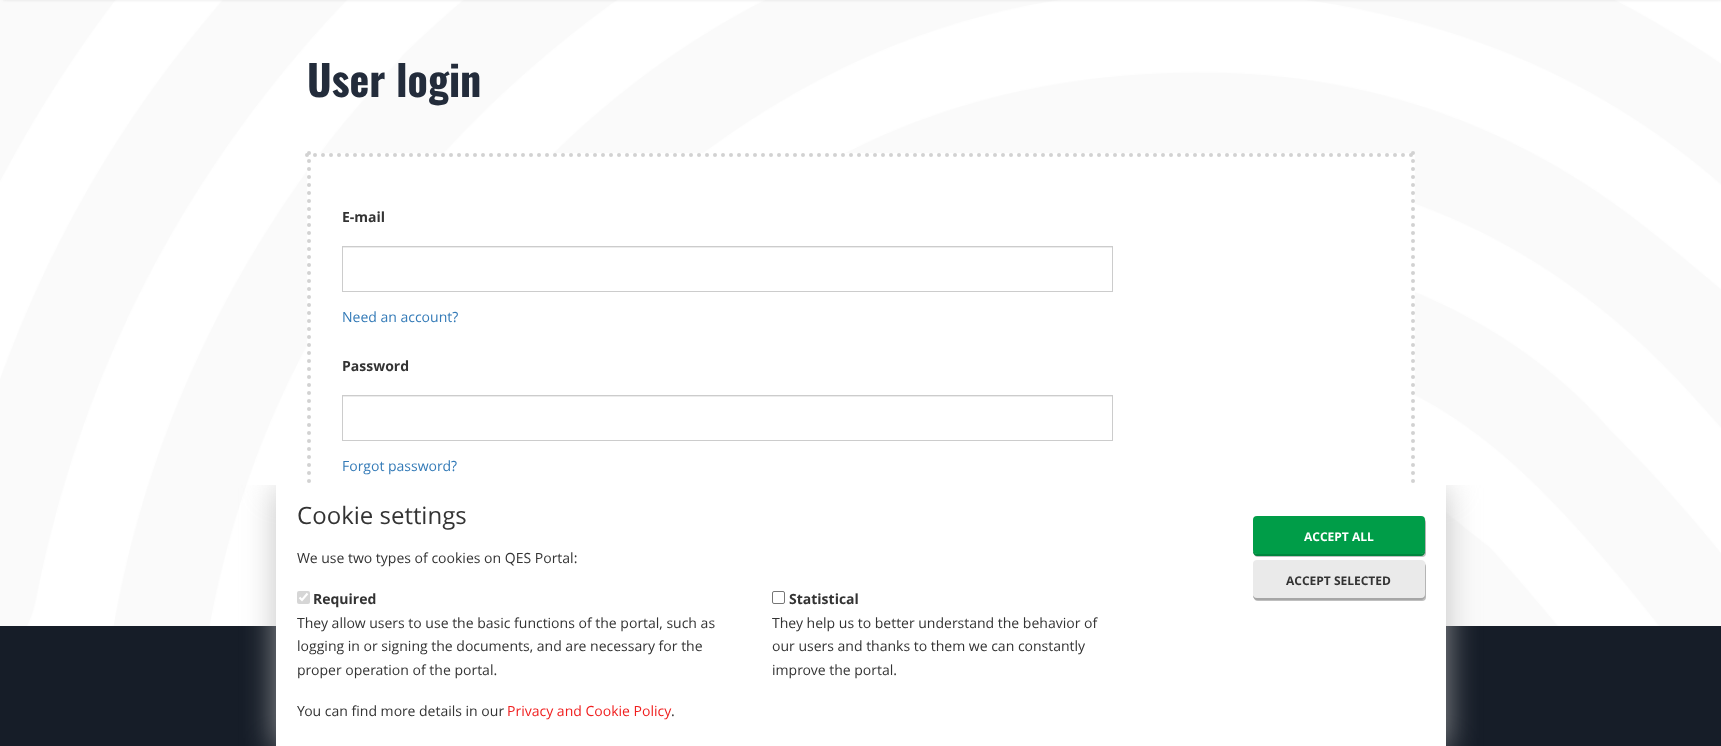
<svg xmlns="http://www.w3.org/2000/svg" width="1721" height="746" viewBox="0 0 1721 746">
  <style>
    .t1 { font: bold 42px Oswald; fill: #232c3b; }
    .t2 { font: bold 14px Open Sans; fill: #333; }
    .t3 { font: 14px Open Sans; fill: #337ab7; }
    .t4 { font: 24px Open Sans; fill: #333; }
    .t5 { font: 14px Open Sans; fill: #333; }
    .t6 { font: 14px Open Sans; fill: #f01e1e; }
    .t7 { font: bold 12px Open Sans; fill: #fff; }
    .t8 { font: bold 12px Open Sans; fill: #333; }
  </style>
  <defs>
    <clipPath id="clip1"><rect x="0" y="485" width="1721" height="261"/></clipPath>
  </defs>
  <rect width="100%" height="100%" fill="#fff"/>
  <image x="0" y="0" width="1721" height="626" href="images/1.png"/>
  <rect x="1" y="-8" width="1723" height="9" rx="5" fill="#b4b4b433" filter="blur(1px)"/>
  <text x="307" y="97" class="t1">User login</text>
  <rect x="307" y="153" width="1108" height="332" fill="#fff"/>
  <path d="M307 155H1415" fill="none" stroke="#d2d2d2" stroke-width="4" stroke-linecap="round" stroke-dasharray="0 8"/>
  <path d="M1413 153V597" fill="none" stroke="#d2d2d2" stroke-width="4" stroke-linecap="round" stroke-dasharray="0 8"/>
  <path d="M309 153V597" fill="none" stroke="#d2d2d2" stroke-width="4" stroke-linecap="round" stroke-dasharray="0 8"/>
  <text x="342" y="222" class="t2">E-mail</text>
  <rect x="343" y="247" width="769" height="1" fill="#ececec"/>
  <rect x="342.5" y="246.5" width="770" height="45" fill="none" stroke="#ccc"/>
  <text x="342" y="322" class="t3">Need an account?</text>
  <text x="342" y="371" class="t2">Password</text>
  <rect x="343" y="396" width="769" height="1" fill="#ececec"/>
  <rect x="342.5" y="395.5" width="770" height="45" fill="none" stroke="#ccc"/>
  <text x="342" y="471" class="t3">Forgot password?</text>
  <rect x="0" y="626" width="1721" height="120" fill="#161d28"/>
  <g clip-path="url(#clip1)">
    <rect x="276" y="488" width="1170" height="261" fill="#b4b4b4cc" filter="blur(16px)"/>
  </g>
  <rect x="276" y="485" width="1170" height="261" fill="#fff"/>
  <text x="297" y="524" class="t4">Cookie settings</text>
  <text x="297" y="563" class="t5">We use two types of cookies on QES Portal:</text>
  <rect x="297" y="591" width="13" height="13" rx="2" fill="#d6d6d6"/>
  <path d="M299.5 597.5L302 600L307.5 593.5" fill="none" stroke="#fff" stroke-width="2.1"/>
  <text x="313" y="604" class="t2">Required</text>
  <text x="297" y="628" class="t5">They allow users to use the basic functions of the portal, such as</text>
  <text x="297" y="651" class="t5">logging in or signing the documents, and are necessary for the</text>
  <text x="297" y="675" class="t5">proper operation of the portal.</text>
  <rect x="772.5" y="591.5" width="12" height="12" rx="1.5" fill="none" stroke="#767676"/>
  <text x="789" y="604" class="t2">Statistical</text>
  <text x="772" y="628" class="t5">They help us to better understand the behavior of</text>
  <text x="772" y="651" class="t5">our users and thanks to them we can constantly</text>
  <text x="772" y="675" class="t5">improve the portal.</text>
  <text x="297" y="716" class="t5">You can find more details in our</text>
  <text x="507" y="716" class="t6">Privacy and Cookie Policy</text>
  <text x="671" y="716" class="t5">.</text>
  <rect x="1254" y="519" width="172" height="38" rx="4" fill="#00000040" filter="blur(0.5px)"/>
  <rect x="1254" y="517" width="172" height="38" rx="4" fill="#0000000d" filter="blur(0.5px)"/>
  <path d="M1253 550V552C1253 554 1255 556 1257 556H1421C1423 556 1425 554 1425 552V550C1425 552 1423 554 1421 554H1257C1255 554 1253 552 1253 550Z" fill="#00863d"/>
  <rect x="1253" y="516" width="172" height="38" rx="4" fill="#009d48"/>
  <text x="1304" y="541" class="t7">ACCEPT ALL</text>
  <rect x="1254" y="563" width="172" height="38" rx="4" fill="#00000040" filter="blur(0.5px)"/>
  <rect x="1254" y="561" width="172" height="38" rx="4" fill="#0000000d" filter="blur(0.5px)"/>
  <path d="M1253 594V596C1253 598 1255 600 1257 600H1421C1423 600 1425 598 1425 596V594C1425 596 1423 598 1421 598H1257C1255 598 1253 596 1253 594Z" fill="#a6a6a6"/>
  <rect x="1253" y="560" width="172" height="38" rx="4" fill="#eaeaea"/>
  <text x="1286" y="585" class="t8">ACCEPT SELECTED</text>
</svg>
